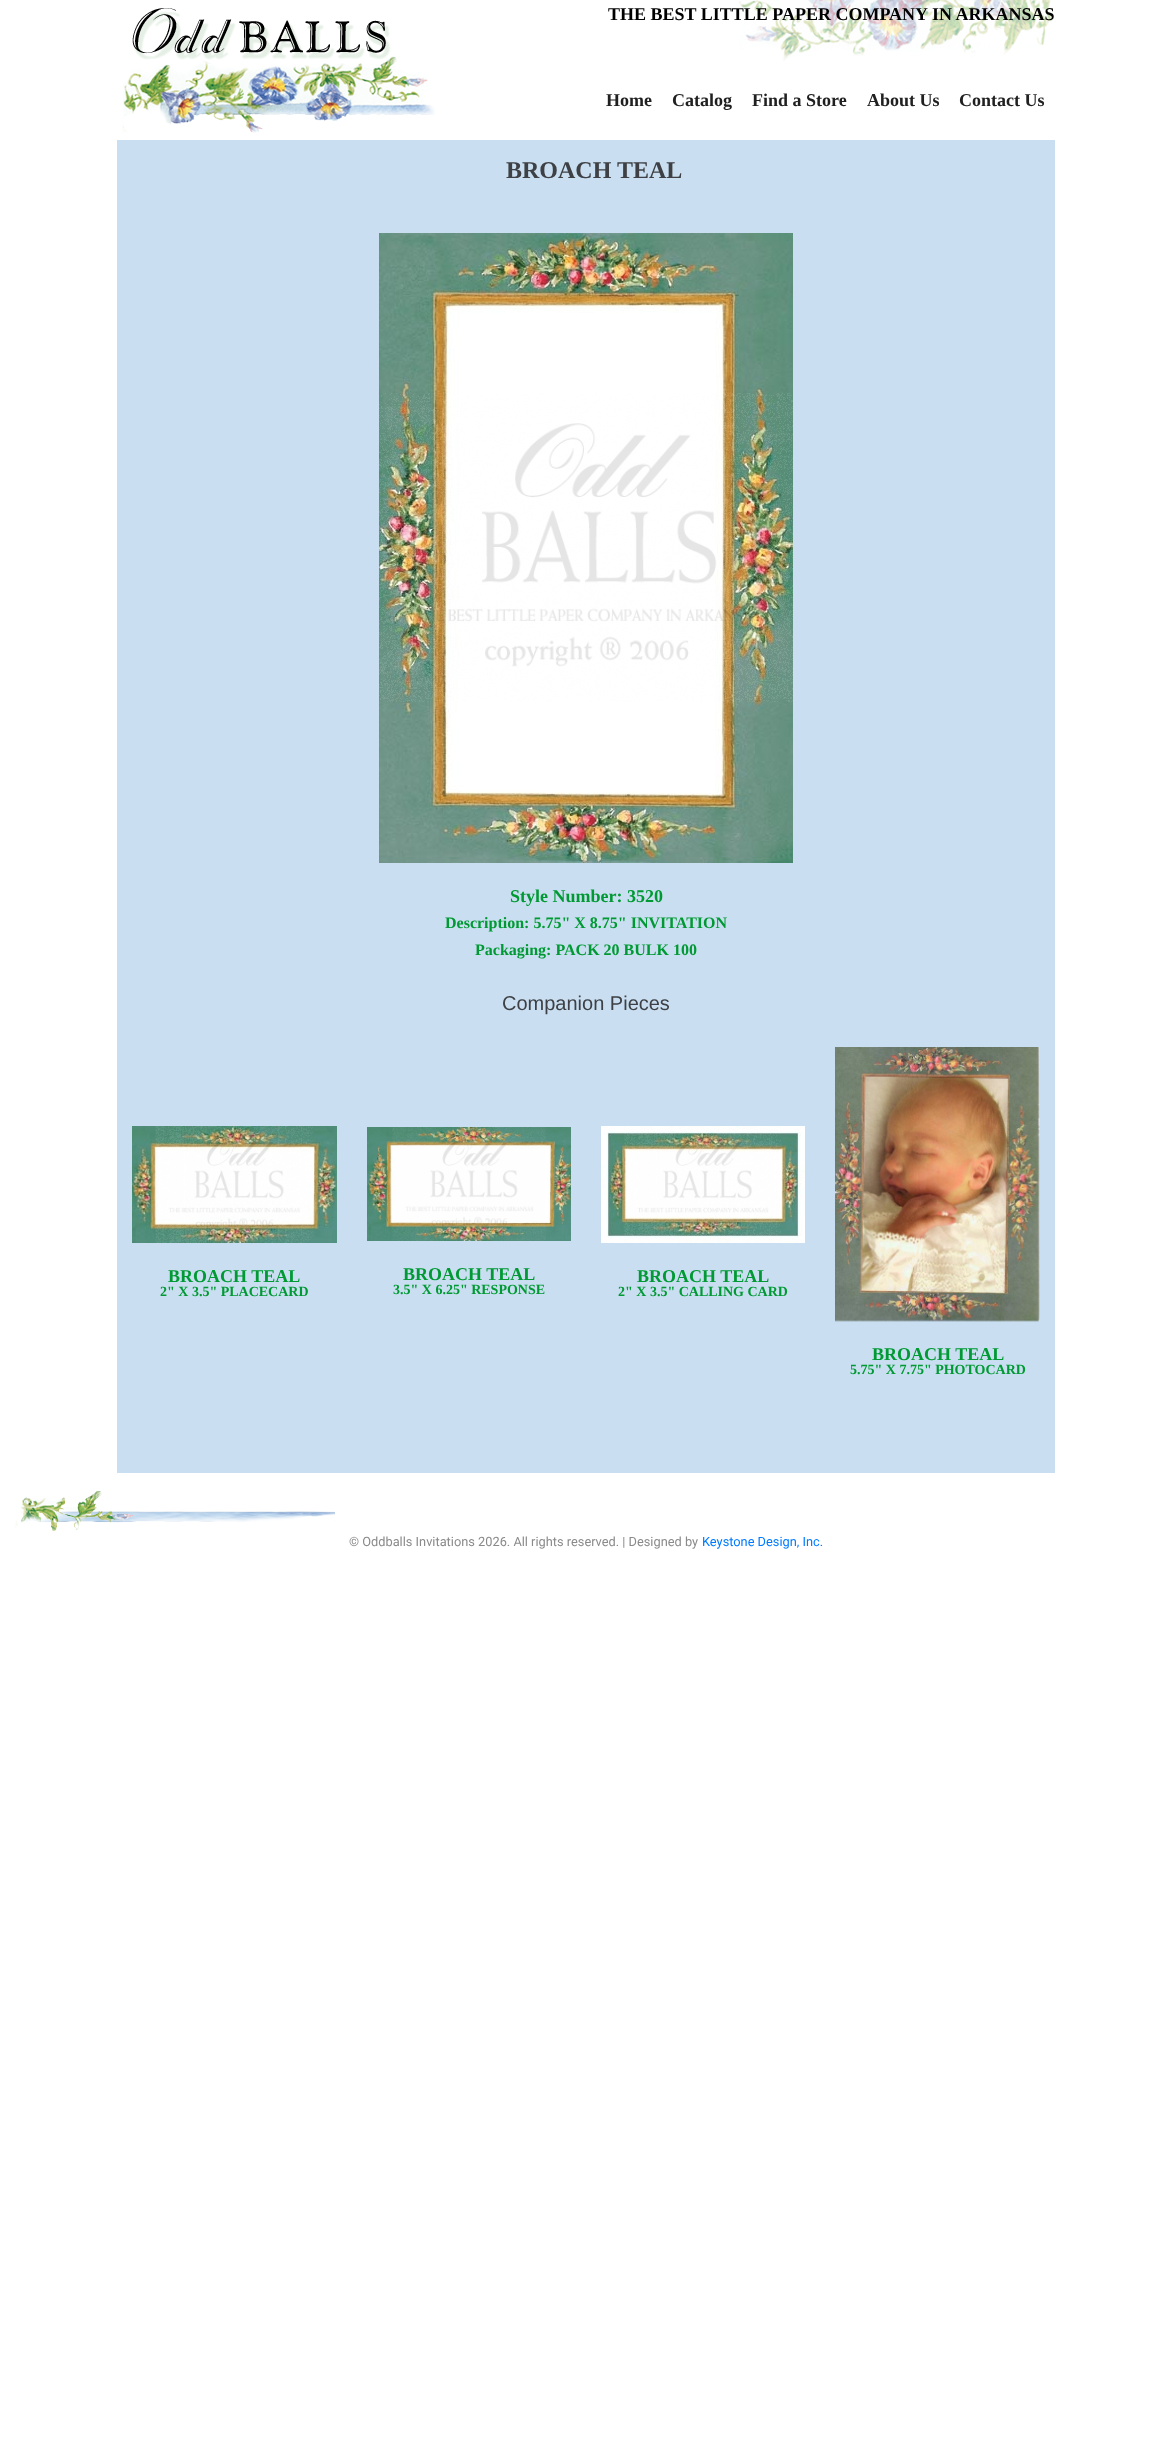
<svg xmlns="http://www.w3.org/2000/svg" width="1172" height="2443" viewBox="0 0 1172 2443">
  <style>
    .t1 { font: bold 18px Liberation Serif; fill: #000; }
    .t2 { font: bold 18px Liberation Serif; fill: #202020; }
    .t3 { font: bold 24px Liberation Serif; fill: #3e4045; }
    .t4 { font: bold 18px Liberation Serif; fill: #093; }
    .t5 { font: bold 16px Liberation Serif; fill: #093; }
    .t6 { font: 20px Liberation Sans; fill: #3e4045; }
    .t7 { font: bold 14px Liberation Serif; fill: #093; }
    .t8 { font: 12.8px Roboto; fill: #8a8a8a; }
    .t9 { font: 12.8px Roboto; fill: #007bff; }
  </style>
  <rect width="100%" height="100%" fill="#fff"/>
  <image x="739" y="0" width="314" height="61" href="images/1.png"/>
  <text x="608" y="20" class="t1">THE BEST LITTLE PAPER COMPANY IN ARKANSAS</text>
  <image x="122" y="8" width="313" height="125" href="images/2.png"/>
  <text x="606" y="106" class="t2">Home</text>
  <text x="672" y="106" class="t2">Catalog</text>
  <text x="752" y="106" class="t2">Find a Store</text>
  <text x="867" y="106" class="t2">About Us</text>
  <text x="959" y="106" class="t2">Contact Us</text>
  <rect x="117" y="140" width="938" height="69" fill="#c9dff1"/>
  <text x="506" y="178" class="t3">BROACH TEAL</text>
  <rect x="117" y="209" width="938" height="1264" fill="#c9dff1"/>
  <image x="379" y="233" width="414" height="630" href="images/3.png"/>
  <text x="510" y="902" class="t4">Style Number: 3520</text>
  <text x="445" y="928" class="t5">Description: 5.75" X 8.75" INVITATION</text>
  <text x="475" y="955" class="t5">Packaging: PACK 20 BULK 100</text>
  <text x="502" y="1010" class="t6">Companion Pieces</text>
  <image x="132" y="1126" width="205" height="117" href="images/4.png"/>
  <text x="168" y="1282" class="t4">BROACH TEAL</text>
  <text x="160" y="1296" class="t7">2" X 3.5" PLACECARD</text>
  <image x="367" y="1127" width="204" height="114" href="images/5.png"/>
  <text x="403" y="1280" class="t4">BROACH TEAL</text>
  <text x="393" y="1294" class="t7">3.5" X 6.25" RESPONSE</text>
  <image x="601" y="1126" width="204" height="117" href="images/6.png"/>
  <text x="637" y="1282" class="t4">BROACH TEAL</text>
  <text x="618" y="1296" class="t7">2" X 3.5" CALLING CARD</text>
  <image x="835" y="1047" width="205" height="275" href="images/7.png"/>
  <text x="872" y="1360" class="t4">BROACH TEAL</text>
  <text x="850" y="1374" class="t7">5.75" X 7.75" PHOTOCARD</text>
  <image x="15" y="1491" width="320" height="40" href="images/8.png"/>
  <text x="349" y="1546" class="t8">© Oddballs Invitations 2026. All rights reserved. | Designed by</text>
  <text x="702" y="1546" class="t9">Keystone Design, Inc.</text>
</svg>
